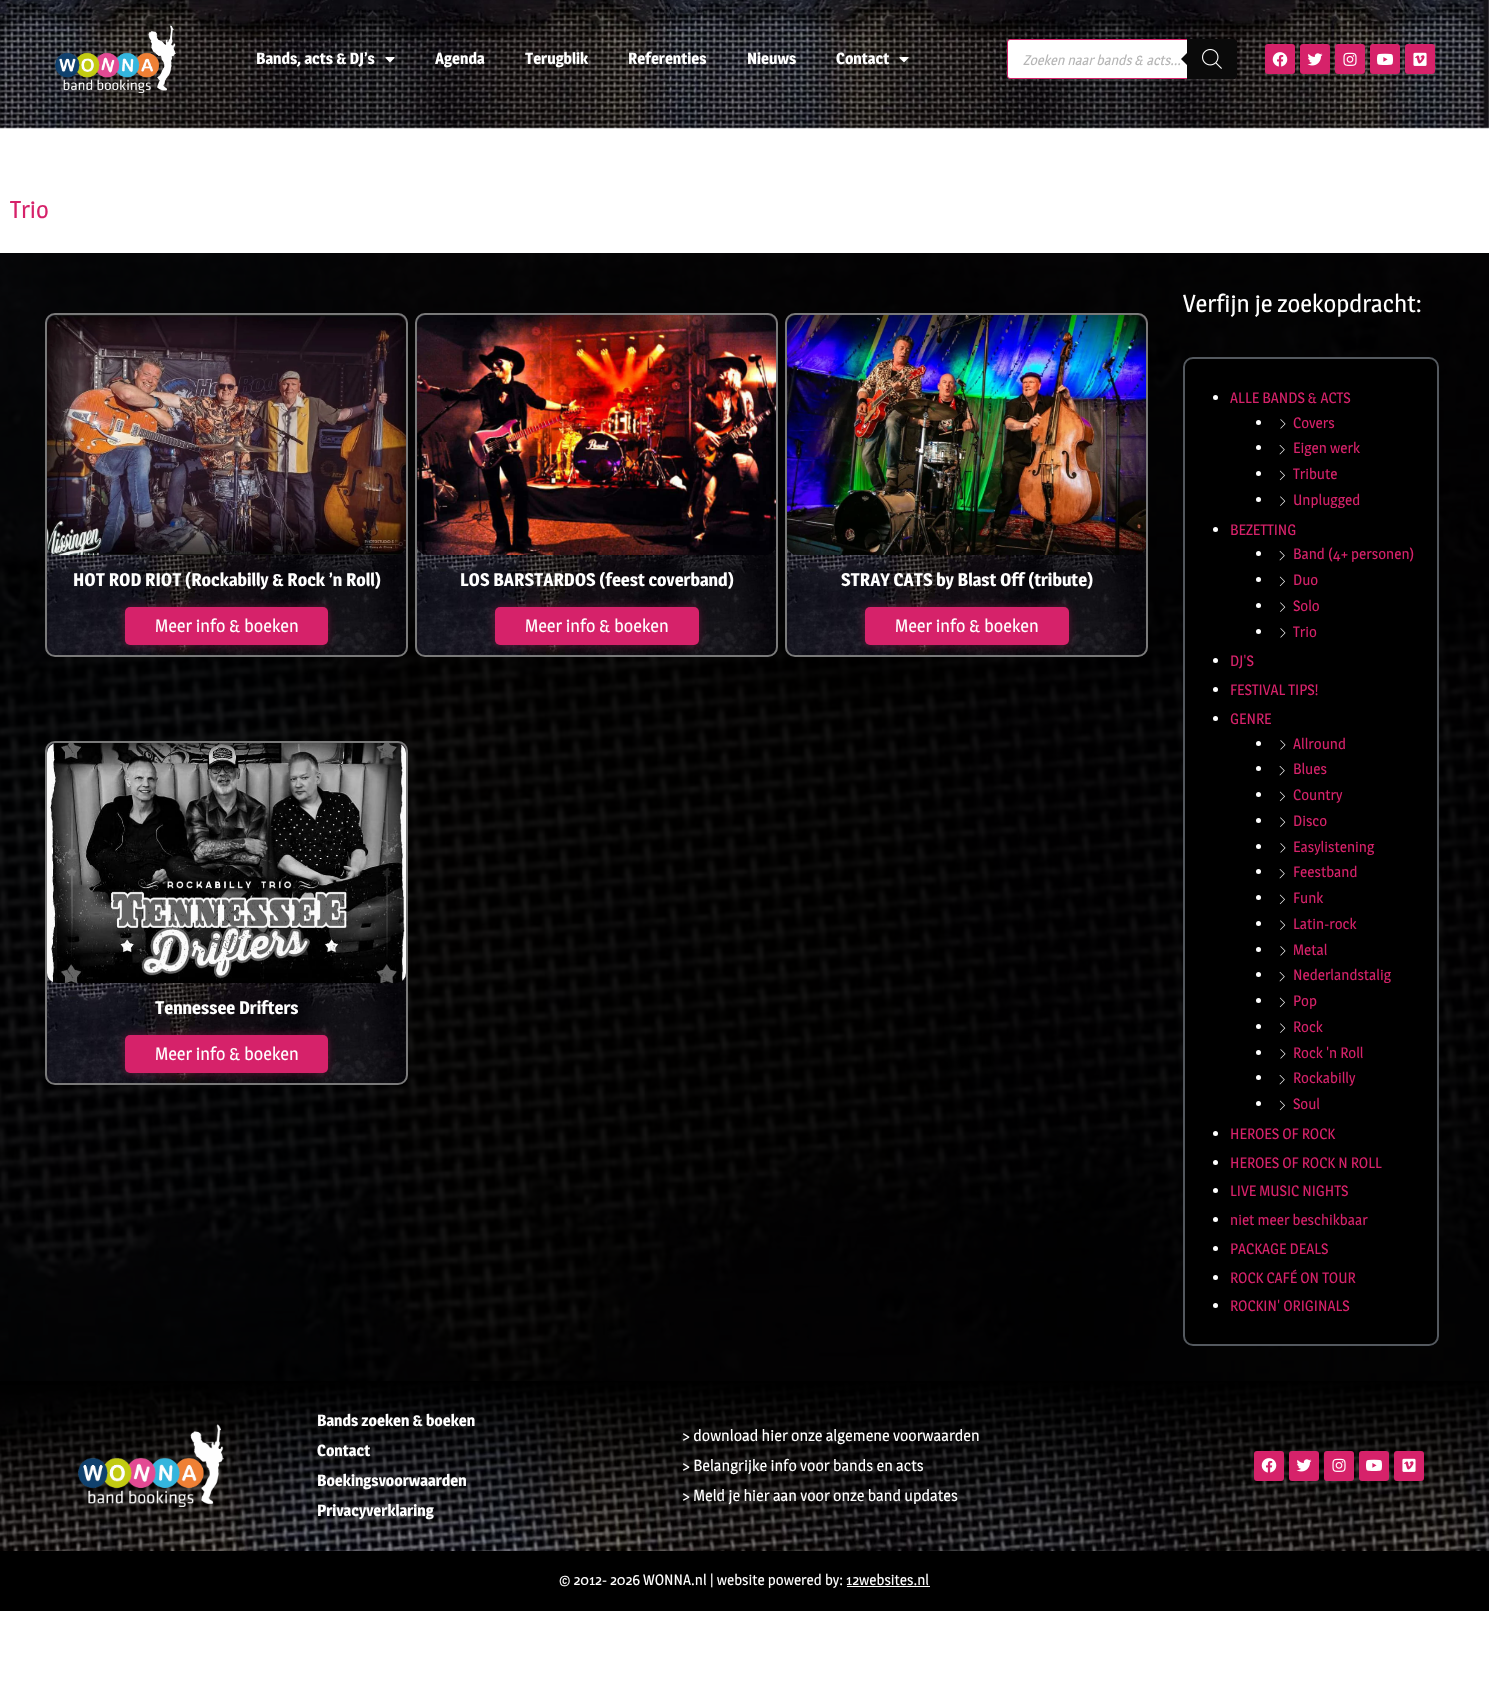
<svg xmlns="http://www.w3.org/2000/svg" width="1489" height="1685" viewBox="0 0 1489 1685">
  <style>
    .t1 { font: bold 16px Magra; fill: #fff; }
    .t2 { font: italic 14px Magra; fill: #b6b6b6; }
    .t3 { font: 24.4px Magra; fill: #d6226a; }
    .t4 { font: bold 18px Magra; fill: #fff; }
    .t5 { font: 18px Magra; fill: #fff; }
    .t6 { font: 24.4px Magra; fill: #fff; }
    .t7 { font: 15px Magra; fill: #d6226a; }
    .t8 { font: 16px Magra; fill: #fff; }
    .t9 { font: 15px Magra; fill: #fff; }
  </style>
  <rect width="100%" height="100%" fill="#fff"/>
  <image x="0" y="0" width="1489" height="129" href="images/1.png"/>
  <image x="55" y="25" width="121" height="68" href="images/2.png"/>
  <text x="256" y="64" class="t1">Bands, acts &amp; DJ’s</text>
  <image x="385" y="57" width="10" height="6" href="images/3.png"/>
  <text x="435" y="64" class="t1">Agenda</text>
  <text x="525" y="64" class="t1">Terugblik</text>
  <text x="628" y="64" class="t1">Referenties</text>
  <text x="747" y="64" class="t1">Nieuws</text>
  <text x="836" y="64" class="t1">Contact</text>
  <image x="899" y="57" width="10" height="6" href="images/4.png"/>
  <rect x="1007.5" y="39.5" width="229" height="39" rx="2.5" fill="#fff" stroke="#d6226a"/>
  <text x="1023" y="65" class="t2">Zoeken naar bands &amp; acts...</text>
  <path d="M1187 39H1235C1236 39 1237 40 1237 41V77C1237 78 1236 79 1235 79H1187Z" fill="#0a0a0a"/>
  <path d="M1189 51V67L1181 59Z" fill="#0a0a0a"/>
  <image x="1202" y="49" width="20" height="20" href="images/5.png"/>
  <rect x="1265" y="44" width="30" height="30" rx="3" fill="#d6226a"/>
  <image x="1272" y="52" width="16" height="15" href="images/6.png"/>
  <rect x="1300" y="44" width="30" height="30" rx="3" fill="#d6226a"/>
  <image x="1307" y="53" width="16" height="13" href="images/7.png"/>
  <rect x="1335" y="44" width="30" height="30" rx="3" fill="#d6226a"/>
  <image x="1343" y="52" width="14" height="14" href="images/8.png"/>
  <rect x="1370" y="44" width="30" height="30" rx="3" fill="#d6226a"/>
  <image x="1377" y="53" width="16" height="12" href="images/9.png"/>
  <rect x="1405" y="44" width="30" height="30" rx="3" fill="#d6226a"/>
  <image x="1413" y="52" width="14" height="14" href="images/10.png"/>
  <text x="10" y="218" class="t3">Trio</text>
  <image x="0" y="253" width="1489" height="1128" href="images/11.png"/>
  <image x="45" y="315" width="363" height="340" href="images/12.png"/>
  <rect x="46" y="314" width="361" height="342" rx="9" fill="none" stroke="#7a7a7a" stroke-width="2"/>
  <image x="47" y="315" width="359" height="240" href="images/13.png"/>
  <text x="73" y="586" class="t4">HOT ROD RIOT (Rockabilly &amp; Rock ’n Roll)</text>
  <rect x="125" y="607" width="203" height="38" rx="5" fill="#d6226a66" filter="blur(5px)"/>
  <rect x="125" y="607" width="203" height="38" rx="5" fill="#d6226a"/>
  <text x="155" y="632" class="t5">Meer info &amp; boeken</text>
  <image x="415" y="315" width="363" height="340" href="images/14.png"/>
  <rect x="416" y="314" width="361" height="342" rx="9" fill="none" stroke="#7a7a7a" stroke-width="2"/>
  <image x="417" y="315" width="359" height="240" href="images/15.png"/>
  <text x="460" y="586" class="t4">LOS BARSTARDOS (feest coverband)</text>
  <rect x="495" y="607" width="204" height="38" rx="5" fill="#d6226a66" filter="blur(5px)"/>
  <rect x="495" y="607" width="204" height="38" rx="5" fill="#d6226a"/>
  <text x="525" y="632" class="t5">Meer info &amp; boeken</text>
  <image x="785" y="315" width="363" height="340" href="images/16.png"/>
  <rect x="786" y="314" width="361" height="342" rx="9" fill="none" stroke="#7a7a7a" stroke-width="2"/>
  <image x="787" y="315" width="359" height="240" href="images/17.png"/>
  <text x="841" y="586" class="t4">STRAY CATS by Blast Off (tribute)</text>
  <rect x="865" y="607" width="204" height="38" rx="5" fill="#d6226a66" filter="blur(5px)"/>
  <rect x="865" y="607" width="204" height="38" rx="5" fill="#d6226a"/>
  <text x="895" y="632" class="t5">Meer info &amp; boeken</text>
  <image x="45" y="743" width="363" height="340" href="images/18.png"/>
  <rect x="46" y="742" width="361" height="342" rx="9" fill="none" stroke="#7a7a7a" stroke-width="2"/>
  <image x="47" y="743" width="359" height="240" href="images/19.png"/>
  <text x="155" y="1014" class="t4">Tennessee Drifters</text>
  <rect x="125" y="1035" width="203" height="38" rx="5" fill="#d6226a66" filter="blur(5px)"/>
  <rect x="125" y="1035" width="203" height="38" rx="5" fill="#d6226a"/>
  <text x="155" y="1060" class="t5">Meer info &amp; boeken</text>
  <text x="1183" y="312" class="t6">Verfijn je zoekopdracht:</text>
  <rect x="1184" y="358" width="254" height="987" rx="9" fill="#000" stroke="#54595f" stroke-width="2"/>
  <circle cx="1215.5" cy="397.5" r="2.5" fill="#fff"/>
  <text x="1230" y="403" class="t7">ALLE BANDS &amp; ACTS</text>
  <circle cx="1258.5" cy="422.5" r="2.5" fill="#fff"/>
  <image x="1280" y="419" width="6" height="10" href="images/20.png"/>
  <text x="1293" y="428" class="t7">Covers</text>
  <circle cx="1258.5" cy="447.5" r="2.5" fill="#fff"/>
  <image x="1279" y="445" width="6" height="10" href="images/21.png"/>
  <text x="1293" y="453" class="t7">Eigen werk</text>
  <circle cx="1258.5" cy="473.5" r="2.5" fill="#fff"/>
  <image x="1279" y="470" width="6" height="11" href="images/22.png"/>
  <text x="1293" y="479" class="t7">Tribute</text>
  <circle cx="1258.5" cy="499.5" r="2.5" fill="#fff"/>
  <image x="1280" y="496" width="6" height="10" href="images/23.png"/>
  <text x="1293" y="505" class="t7">Unplugged</text>
  <circle cx="1215.5" cy="529.5" r="2.5" fill="#fff"/>
  <text x="1230" y="535" class="t7">BEZETTING</text>
  <circle cx="1258.5" cy="553.5" r="2.5" fill="#fff"/>
  <image x="1279" y="551" width="6" height="10" href="images/21.png"/>
  <text x="1293" y="559" class="t7">Band (4+ personen)</text>
  <circle cx="1258.5" cy="579.5" r="2.5" fill="#fff"/>
  <image x="1279" y="576" width="6" height="11" href="images/22.png"/>
  <text x="1293" y="585" class="t7">Duo</text>
  <circle cx="1258.5" cy="605.5" r="2.5" fill="#fff"/>
  <image x="1280" y="602" width="6" height="10" href="images/23.png"/>
  <text x="1293" y="611" class="t7">Solo</text>
  <circle cx="1258.5" cy="631.5" r="2.5" fill="#fff"/>
  <image x="1280" y="628" width="6" height="10" href="images/20.png"/>
  <text x="1293" y="637" class="t7">Trio</text>
  <circle cx="1215.5" cy="660.5" r="2.5" fill="#fff"/>
  <text x="1230" y="666" class="t7">DJ'S</text>
  <circle cx="1215.5" cy="689.5" r="2.5" fill="#fff"/>
  <text x="1230" y="695" class="t7">FESTIVAL TIPS!</text>
  <circle cx="1215.5" cy="718.5" r="2.5" fill="#fff"/>
  <text x="1230" y="724" class="t7">GENRE</text>
  <circle cx="1258.5" cy="743.5" r="2.5" fill="#fff"/>
  <image x="1280" y="740" width="6" height="10" href="images/20.png"/>
  <text x="1293" y="749" class="t7">Allround</text>
  <circle cx="1258.5" cy="768.5" r="2.5" fill="#fff"/>
  <image x="1279" y="766" width="6" height="10" href="images/21.png"/>
  <text x="1293" y="774" class="t7">Blues</text>
  <circle cx="1258.5" cy="794.5" r="2.5" fill="#fff"/>
  <image x="1279" y="791" width="6" height="11" href="images/22.png"/>
  <text x="1293" y="800" class="t7">Country</text>
  <circle cx="1258.5" cy="820.5" r="2.5" fill="#fff"/>
  <image x="1280" y="817" width="6" height="10" href="images/23.png"/>
  <text x="1293" y="826" class="t7">Disco</text>
  <circle cx="1258.5" cy="846.5" r="2.5" fill="#fff"/>
  <image x="1280" y="843" width="6" height="10" href="images/20.png"/>
  <text x="1293" y="852" class="t7">Easylistening</text>
  <circle cx="1258.5" cy="871.5" r="2.5" fill="#fff"/>
  <image x="1279" y="869" width="6" height="10" href="images/21.png"/>
  <text x="1293" y="877" class="t7">Feestband</text>
  <circle cx="1258.5" cy="897.5" r="2.5" fill="#fff"/>
  <image x="1279" y="894" width="6" height="11" href="images/22.png"/>
  <text x="1293" y="903" class="t7">Funk</text>
  <circle cx="1258.5" cy="923.5" r="2.5" fill="#fff"/>
  <image x="1280" y="920" width="6" height="10" href="images/23.png"/>
  <text x="1293" y="929" class="t7">Latin-rock</text>
  <circle cx="1258.5" cy="949.5" r="2.5" fill="#fff"/>
  <image x="1280" y="946" width="6" height="10" href="images/20.png"/>
  <text x="1293" y="955" class="t7">Metal</text>
  <circle cx="1258.5" cy="974.5" r="2.5" fill="#fff"/>
  <image x="1279" y="972" width="6" height="10" href="images/21.png"/>
  <text x="1293" y="980" class="t7">Nederlandstalig</text>
  <circle cx="1258.5" cy="1000.5" r="2.5" fill="#fff"/>
  <image x="1279" y="997" width="6" height="11" href="images/22.png"/>
  <text x="1293" y="1006" class="t7">Pop</text>
  <circle cx="1258.5" cy="1026.5" r="2.5" fill="#fff"/>
  <image x="1280" y="1023" width="6" height="10" href="images/23.png"/>
  <text x="1293" y="1032" class="t7">Rock</text>
  <circle cx="1258.5" cy="1052.5" r="2.5" fill="#fff"/>
  <image x="1280" y="1049" width="6" height="10" href="images/20.png"/>
  <text x="1293" y="1058" class="t7">Rock 'n Roll</text>
  <circle cx="1258.5" cy="1077.5" r="2.5" fill="#fff"/>
  <image x="1279" y="1075" width="6" height="10" href="images/21.png"/>
  <text x="1293" y="1083" class="t7">Rockabilly</text>
  <circle cx="1258.5" cy="1103.5" r="2.5" fill="#fff"/>
  <image x="1279" y="1100" width="6" height="11" href="images/22.png"/>
  <text x="1293" y="1109" class="t7">Soul</text>
  <circle cx="1215.5" cy="1133.5" r="2.5" fill="#fff"/>
  <text x="1230" y="1139" class="t7">HEROES OF ROCK</text>
  <circle cx="1215.5" cy="1162.5" r="2.5" fill="#fff"/>
  <text x="1230" y="1168" class="t7">HEROES OF ROCK N ROLL</text>
  <circle cx="1215.5" cy="1190.5" r="2.5" fill="#fff"/>
  <text x="1230" y="1196" class="t7">LIVE MUSIC NIGHTS</text>
  <circle cx="1215.5" cy="1219.5" r="2.5" fill="#fff"/>
  <text x="1230" y="1225" class="t7">niet meer beschikbaar</text>
  <circle cx="1215.5" cy="1248.5" r="2.5" fill="#fff"/>
  <text x="1230" y="1254" class="t7">PACKAGE DEALS</text>
  <circle cx="1215.5" cy="1277.5" r="2.5" fill="#fff"/>
  <text x="1230" y="1283" class="t7">ROCK CAFÉ ON TOUR</text>
  <circle cx="1215.5" cy="1305.5" r="2.5" fill="#fff"/>
  <text x="1230" y="1311" class="t7">ROCKIN' ORIGINALS</text>
  <image x="0" y="1381" width="1489" height="170" href="images/24.png"/>
  <image x="78" y="1424" width="146" height="83" href="images/25.png"/>
  <text x="317" y="1426" class="t1">Bands zoeken &amp; boeken</text>
  <text x="317" y="1456" class="t1">Contact</text>
  <text x="317" y="1486" class="t1">Boekingsvoorwaarden</text>
  <text x="317" y="1516" class="t1">Privacyverklaring</text>
  <text x="682" y="1441" class="t8">&gt; download hier onze algemene voorwaarden</text>
  <text x="682" y="1471" class="t8">&gt; Belangrijke info voor bands en acts</text>
  <text x="682" y="1501" class="t8">&gt; Meld je hier aan voor onze band updates</text>
  <rect x="1254" y="1451" width="30" height="30" rx="3" fill="#d6226a"/>
  <image x="1261" y="1458" width="16" height="15" href="images/6.png"/>
  <rect x="1289" y="1451" width="30" height="30" rx="3" fill="#d6226a"/>
  <image x="1296" y="1459" width="16" height="13" href="images/7.png"/>
  <rect x="1324" y="1451" width="30" height="30" rx="3" fill="#d6226a"/>
  <image x="1332" y="1458" width="14" height="14" href="images/8.png"/>
  <rect x="1359" y="1451" width="30" height="30" rx="3" fill="#d6226a"/>
  <image x="1366" y="1459" width="16" height="12" href="images/9.png"/>
  <rect x="1394" y="1451" width="30" height="30" rx="3" fill="#d6226a"/>
  <image x="1402" y="1458" width="14" height="14" href="images/10.png"/>
  <rect x="0" y="1551" width="1489" height="60" fill="#000"/>
  <text x="559" y="1585" class="t9">© 2012- 2026 WONNA.nl | website powered by: 12websites.nl</text>
  <rect x="847" y="1586" width="83" height="1" fill="#fff"/>
</svg>
